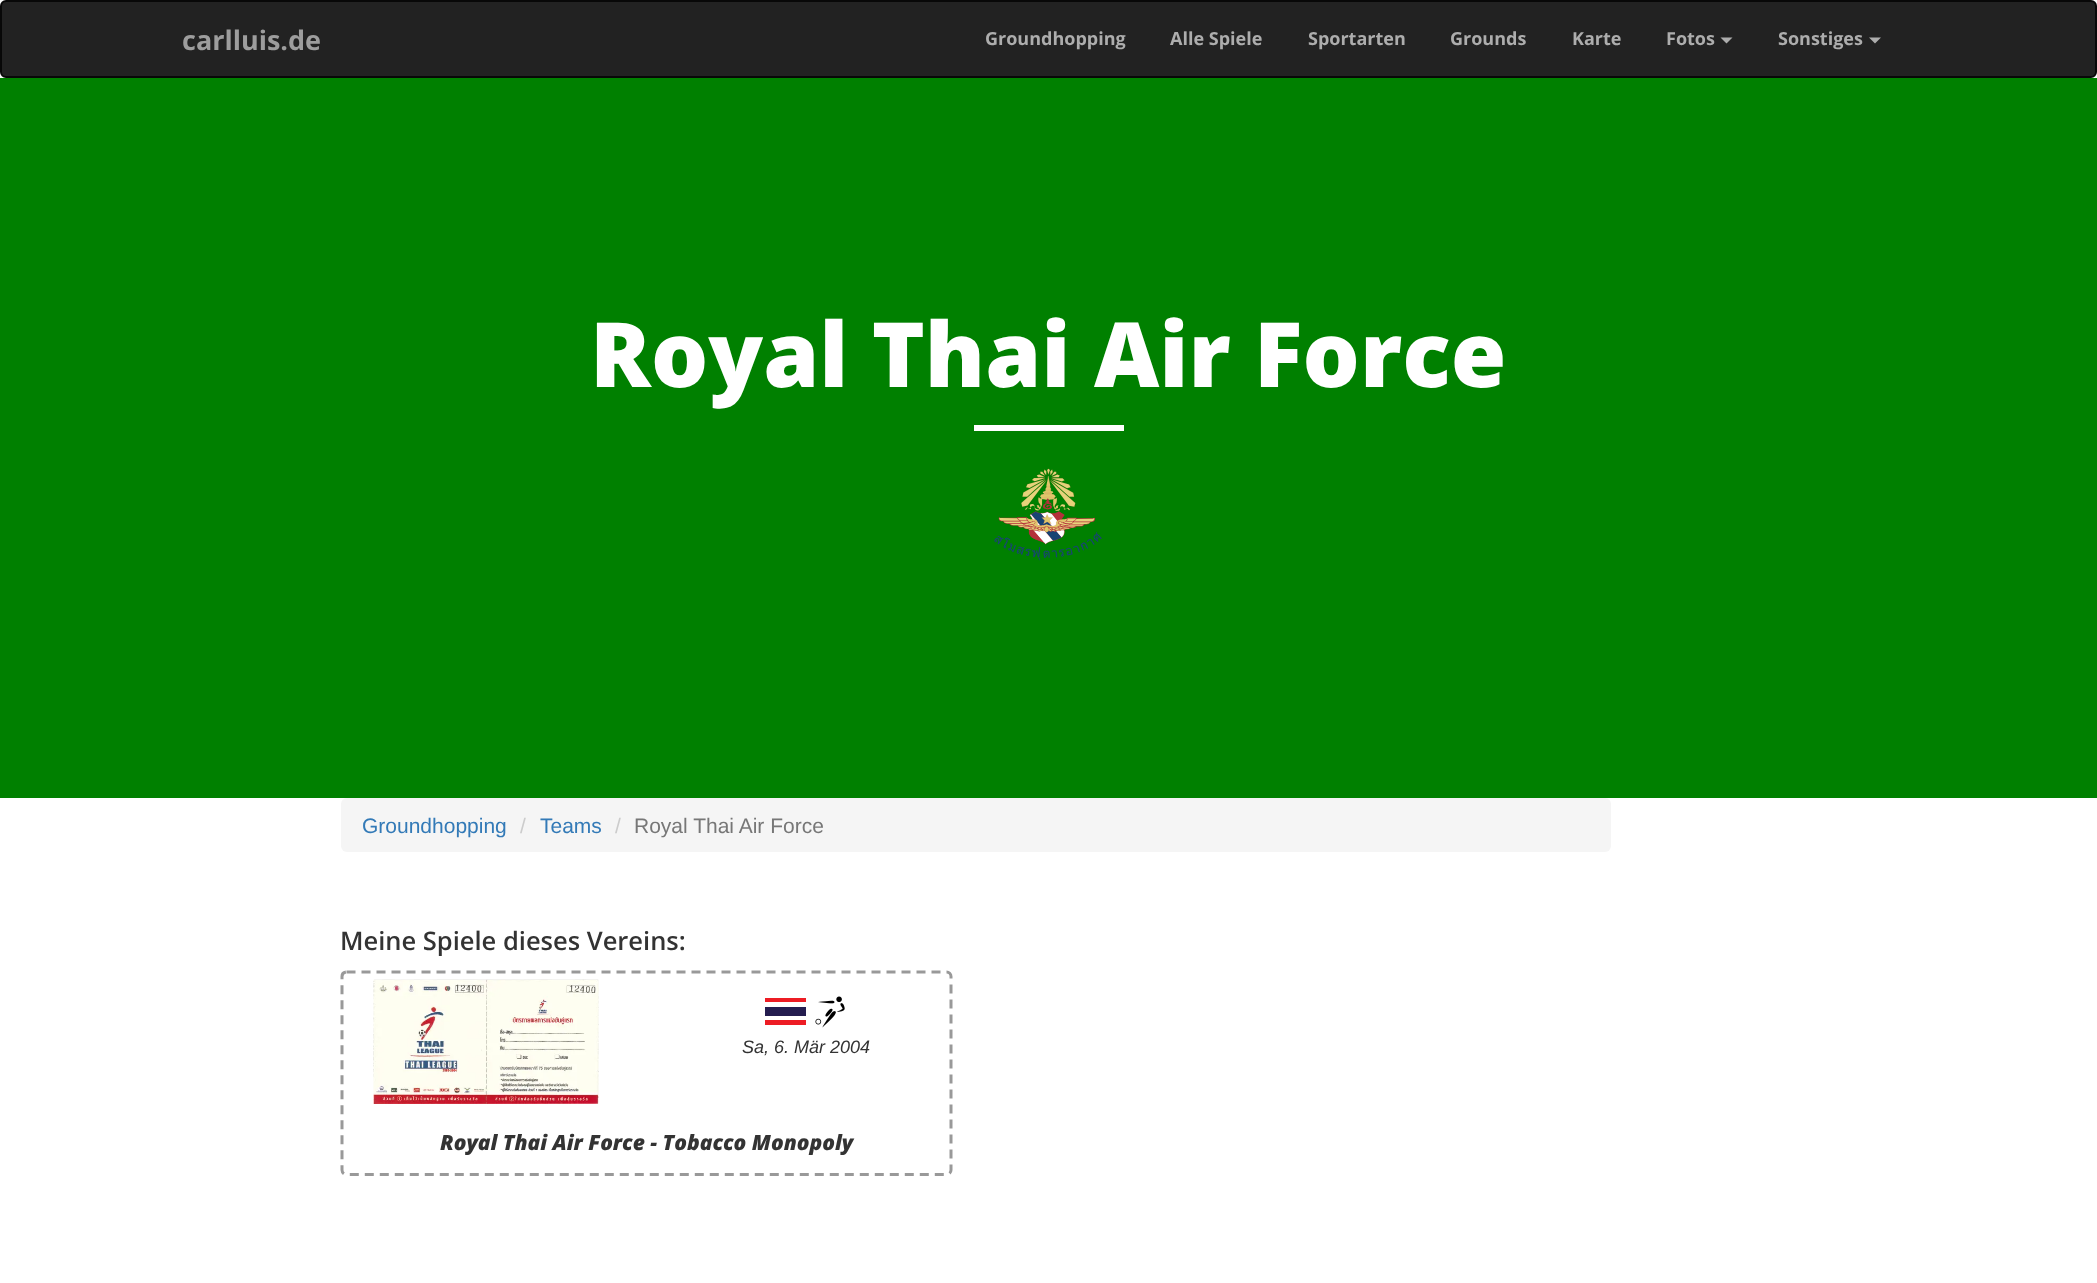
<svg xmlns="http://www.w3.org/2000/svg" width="2097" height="1283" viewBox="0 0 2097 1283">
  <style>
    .t1 { font: bold 27px Open Sans; fill: #9d9d9d; }
    .t2 { font: bold 18px Open Sans; fill: #adadad; }
    .t3 { font: 800 90px Open Sans; fill: #fff; }
    .t4 { font: 21px Liberation Sans; fill: #337ab7; }
    .t5 { font: 21px Liberation Sans; fill: #ccc; }
    .t6 { font: 21px Liberation Sans; fill: #777; }
    .t7 { font: 600 25.5px Open Sans; fill: #333; }
    .t8 { font: italic 18px Liberation Sans; fill: #333; }
    .t9 { font: italic 800 21px Open Sans; fill: #333; }
  </style>
  <rect width="100%" height="100%" fill="#fff"/>
  <rect x="1" y="1" width="2095" height="76" rx="5" fill="#222" stroke="#080808" stroke-width="2"/>
  <text x="182" y="50" class="t1">carlluis.de</text>
  <text x="985" y="45" class="t2">Groundhopping</text>
  <text x="1170" y="45" class="t2">Alle Spiele</text>
  <text x="1308" y="45" class="t2">Sportarten</text>
  <text x="1450" y="45" class="t2">Grounds</text>
  <text x="1572" y="45" class="t2">Karte</text>
  <text x="1666" y="45" class="t2">Fotos</text>
  <path d="M1720.5 37.5H1732.5L1726.5 43.5Z" fill="#adadad"/>
  <text x="1778" y="45" class="t2">Sonstiges</text>
  <path d="M1869 37.5H1881L1875 43.5Z" fill="#adadad"/>
  <rect x="0" y="78" width="2097" height="720" fill="#008000"/>
  <text x="590" y="387" class="t3">Royal Thai Air Force</text>
  <rect x="974" y="425" width="150" height="6" fill="#fff"/>
  <image x="994" y="468" width="108" height="93" href="images/1.png"/>
  <rect x="341" y="798" width="1270" height="54" rx="6" fill="#f5f5f5"/>
  <text x="362" y="833" class="t4">Groundhopping</text>
  <text x="520" y="833" class="t5">/</text>
  <text x="540" y="833" class="t4">Teams</text>
  <text x="615" y="833" class="t5">/</text>
  <text x="634" y="833" class="t6">Royal Thai Air Force</text>
  <text x="340" y="950" class="t7">Meine Spiele dieses Vereins:</text>
  <path d="M346.5 972H946.5C949 972 951 974 951 976.5V1170C951 1172.5 949 1174.5 946.5 1174.5H346.5C344 1174.5 342 1172.5 342 1170V976.5C342 974 344 972 346.5 972Z" fill="none" stroke="#999" stroke-width="3" stroke-dasharray="9 6"/>
  <image x="373" y="979" width="226" height="125" href="images/2.png"/>
  <rect x="765" y="998" width="41" height="27" fill="#ed1c24"/>
  <image x="815" y="996" width="30" height="32" href="images/3.png"/>
  <rect x="765" y="1002" width="41" height="18" fill="#fff"/>
  <rect x="765" y="1007" width="41" height="9" fill="#241d4f"/>
  <text x="742" y="1053" class="t8">Sa, 6. Mär 2004</text>
  <text x="440" y="1150" class="t9">Royal Thai Air Force - Tobacco Monopoly</text>
</svg>
